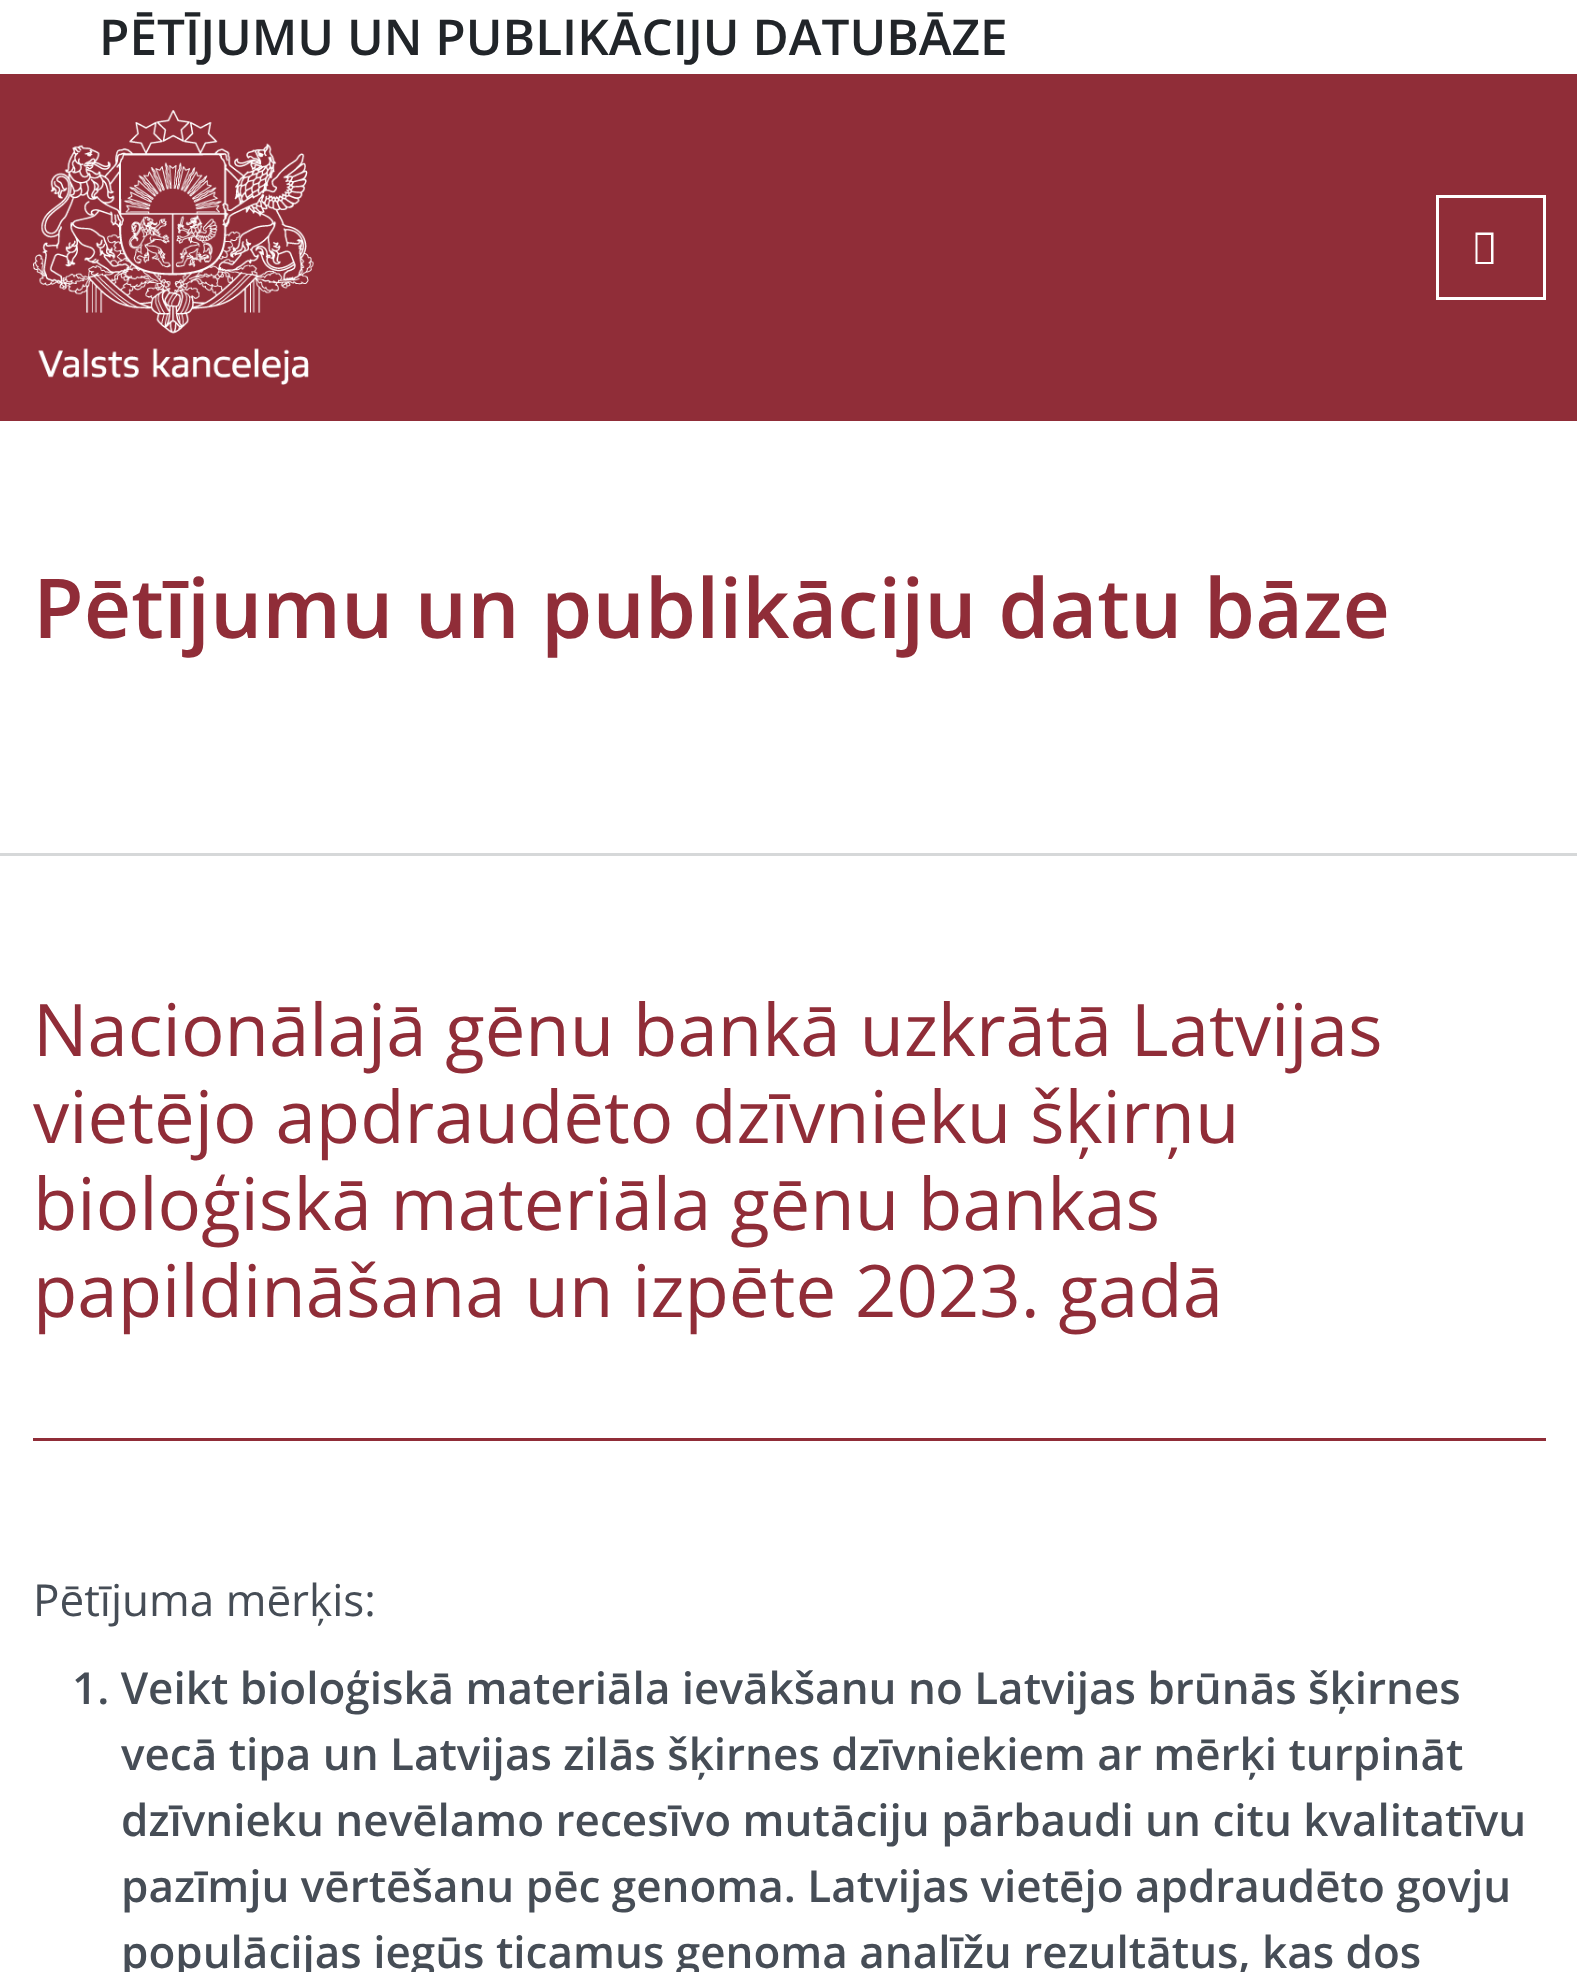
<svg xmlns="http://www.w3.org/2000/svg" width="1577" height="1972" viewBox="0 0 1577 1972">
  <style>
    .t1 { font: 600 49.5px Open Sans; fill: #212529; }
    .t2 { font: 600 82.5px Open Sans; fill: #902d38; }
    .t3 { font: 72.5px Open Sans; fill: #902d38; }
    .t4 { font: 44px Open Sans; fill: #464d56; }
    .t5 { font: 600 44px Open Sans; fill: #464d56; }
  </style>
  <rect width="100%" height="100%" fill="#fff"/>
  <text x="99" y="55" class="t1">PĒTĪJUMU UN PUBLIKĀCIJU DATUBĀZE</text>
  <rect x="0" y="74" width="1577" height="347" fill="#902d38"/>
  <image x="33" y="110" width="281" height="275" href="images/1.png"/>
  <rect x="1437.5" y="196.5" width="107" height="102" fill="none" stroke="#fff" stroke-width="3"/>
  <path d="M1475.5 264V232.5H1493.5V264ZM1477.5 262H1491V235H1477.5Z" fill="#fff"/>
  <rect x="0" y="853" width="1577" height="3" fill="#d6d8d9"/>
  <text x="33" y="638" class="t2">Pētījumu un publikāciju datu bāze</text>
  <rect x="33" y="1438" width="1513" height="3" fill="#902d38"/>
  <text x="33" y="1056" class="t3">Nacionālajā gēnu bankā uzkrātā Latvijas</text>
  <text x="33" y="1143" class="t3">vietējo apdraudēto dzīvnieku šķirņu</text>
  <text x="33" y="1230" class="t3">bioloģiskā materiāla gēnu bankas</text>
  <text x="33" y="1317" class="t3">papildināšana un izpēte 2023. gadā</text>
  <text x="33" y="1616" class="t4">Pētījuma mērķis:</text>
  <text x="72" y="1704" class="t5">1. Veikt bioloģiskā materiāla ievākšanu no Latvijas brūnās šķirnes</text>
  <text x="121" y="1770" class="t5">vecā tipa un Latvijas zilās šķirnes dzīvniekiem ar mērķi turpināt</text>
  <text x="121" y="1836" class="t5">dzīvnieku nevēlamo recesīvo mutāciju pārbaudi un citu kvalitatīvu</text>
  <text x="121" y="1902" class="t5">pazīmju vērtēšanu pēc genoma. Latvijas vietējo apdraudēto govju</text>
  <text x="121" y="1968" class="t5">populācijas iegūs ticamus genoma analīžu rezultātus, kas dos</text>
</svg>
